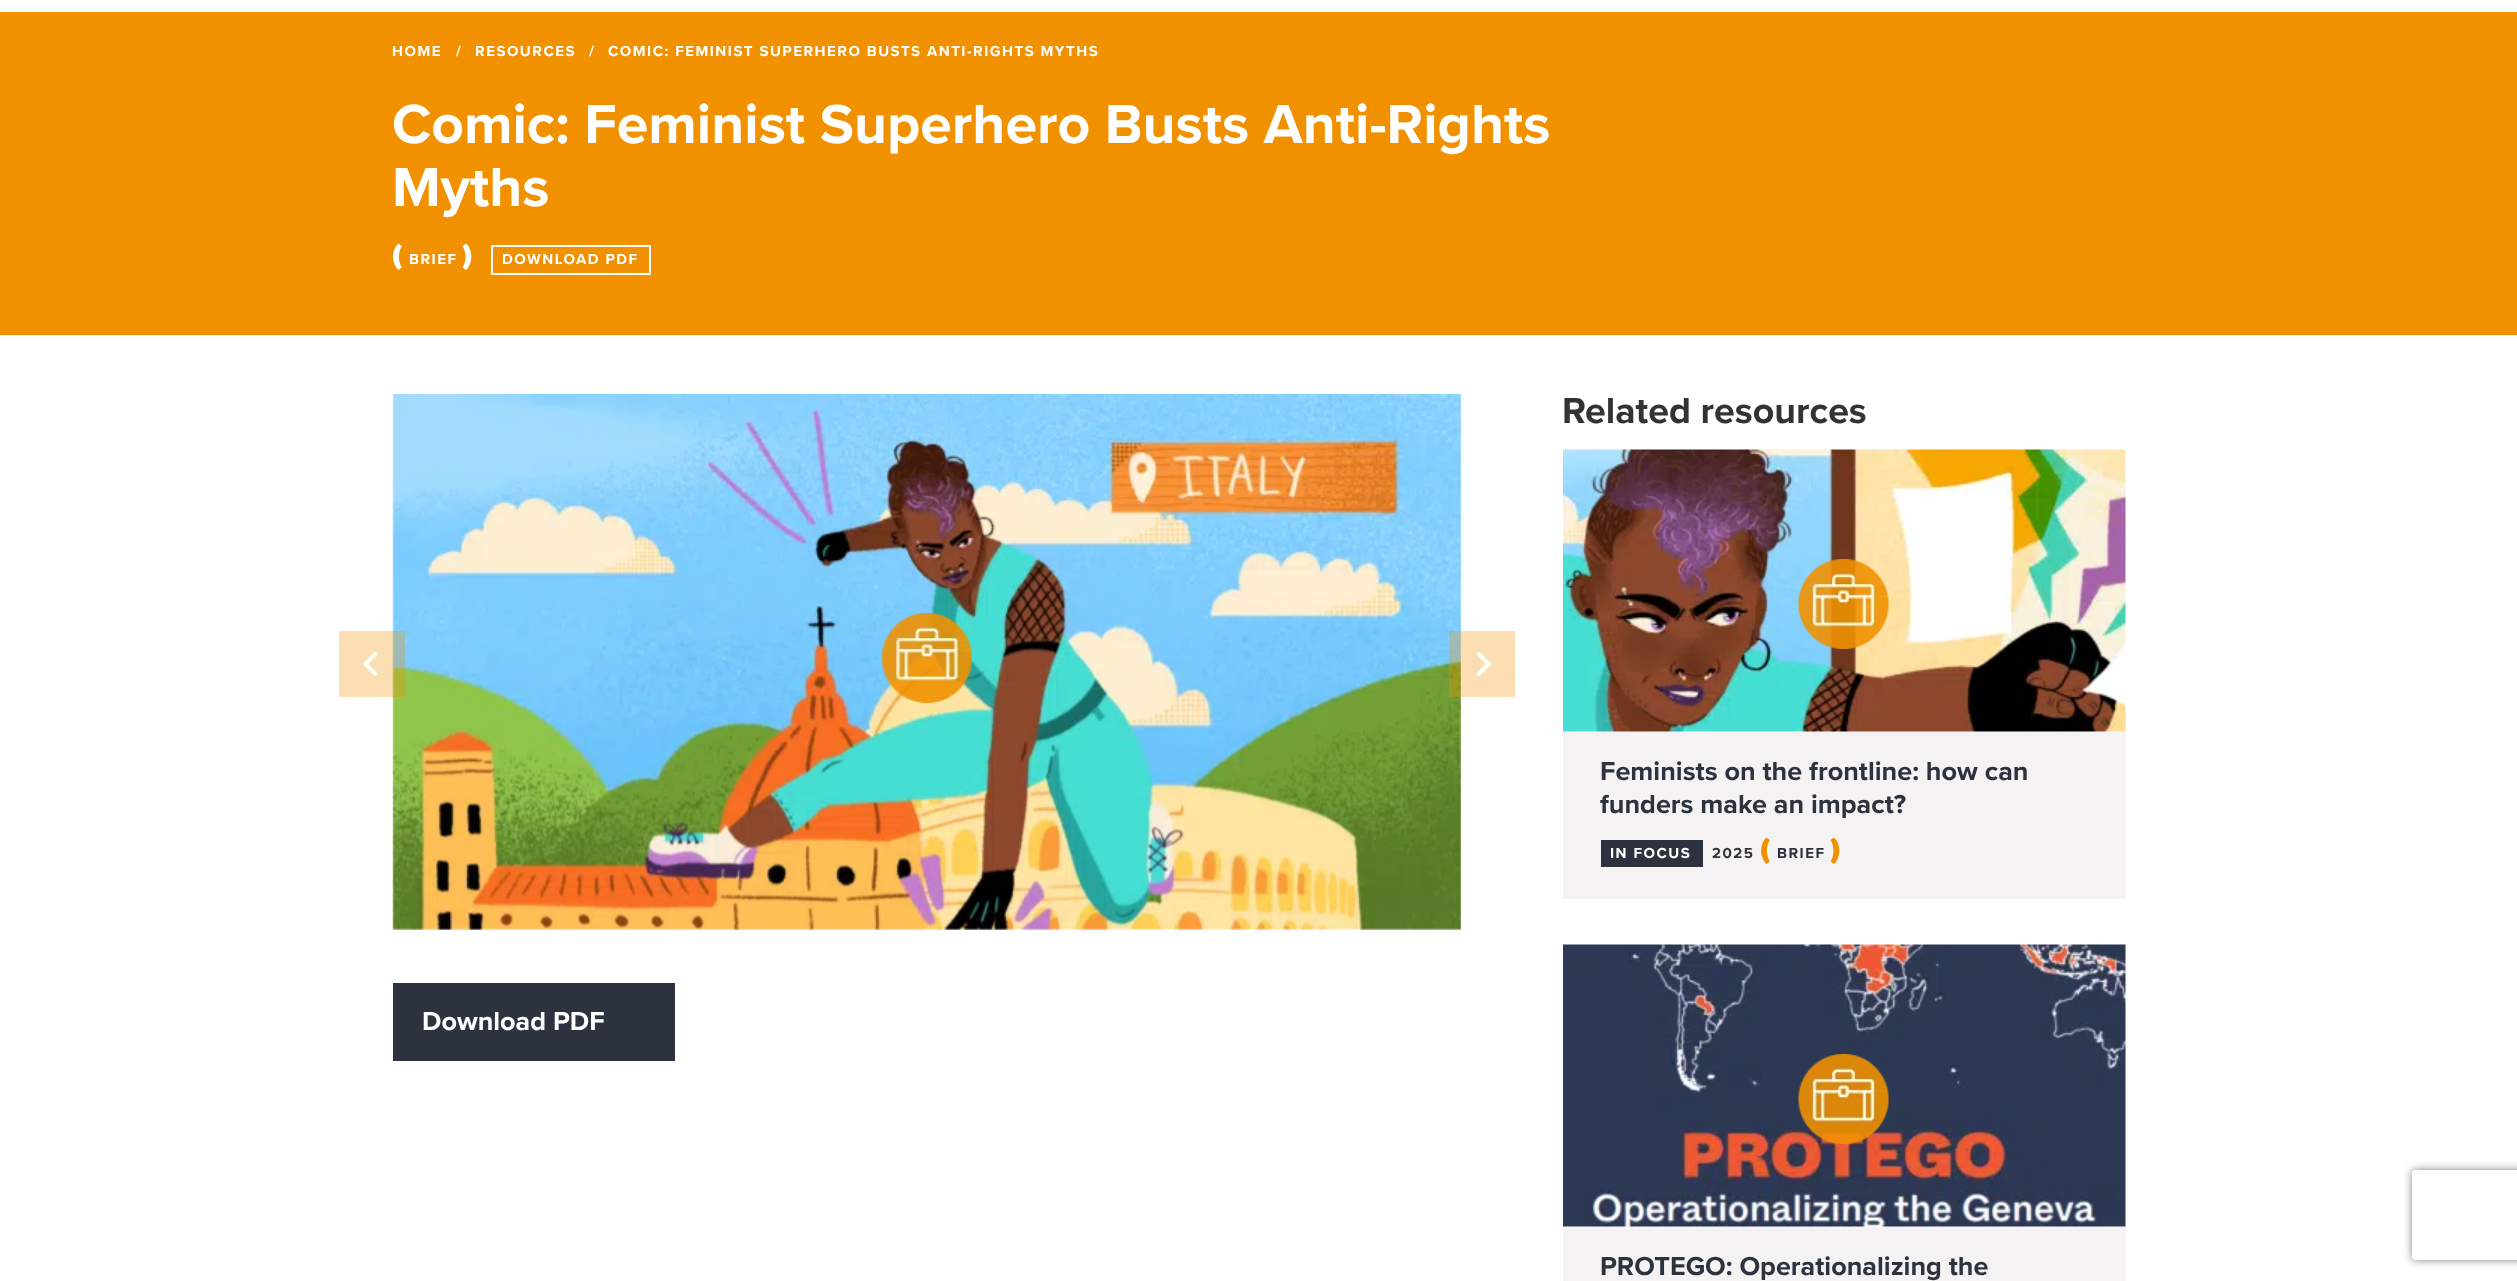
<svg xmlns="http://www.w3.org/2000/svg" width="2517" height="1281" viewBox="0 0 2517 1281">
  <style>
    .t1 { font: bold 15px Proxima Nova; letter-spacing: 1.5px; fill: #fff; }
    .t2 { font: bold 57px Proxima Nova; fill: #fff; }
    .t3 { font: 900 30px Proxima Nova; letter-spacing: 1.5px; fill: #fff; }
    .t4 { font: bold 27px Proxima Nova; fill: #fff; }
    .t5 { font: bold 37.5px Proxima Nova; fill: #333; }
    .t6 { font: bold 27px Proxima Nova; fill: #2c333f; }
    .t7 { font: bold 15px Proxima Nova; letter-spacing: 1.5px; fill: #333; }
    .t8 { font: 900 30px Proxima Nova; letter-spacing: 1.5px; fill: #f29100; }
    .t9 { font: bold 15px Proxima Nova; letter-spacing: 1.5px; fill: #2c333f; }
  </style>
  <defs>
    <clipPath id="clip1"><path d="M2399 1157H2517V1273H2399ZM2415 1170H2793C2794.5 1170 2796 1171.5 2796 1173V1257C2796 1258.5 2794.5 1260 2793 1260H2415C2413.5 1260 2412 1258.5 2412 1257V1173C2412 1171.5 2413.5 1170 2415 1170Z" clip-rule="evenodd"/></clipPath>
  </defs>
  <rect width="100%" height="100%" fill="#fff"/>
  <rect x="0" y="12" width="2517" height="323" fill="#f29100"/>
  <text x="392" y="56" class="t1">HOME</text>
  <text x="456" y="56" class="t1">/</text>
  <text x="475" y="56" class="t1">RESOURCES</text>
  <text x="589" y="56" class="t1">/</text>
  <text x="608" y="56" class="t1">COMIC: FEMINIST SUPERHERO BUSTS ANTI-RIGHTS MYTHS</text>
  <text x="392" y="143" class="t2">Comic: Feminist Superhero Busts Anti-Rights</text>
  <text x="392" y="206" class="t2">Myths</text>
  <text x="392" y="264" class="t3">(</text>
  <text x="409" y="264" class="t1">BRIEF</text>
  <text x="462" y="264" class="t3">)</text>
  <rect x="492" y="246" width="158" height="28" fill="none" stroke="#fff" stroke-width="2"/>
  <text x="502" y="264" class="t1">DOWNLOAD PDF</text>
  <image x="392" y="394" width="1069" height="536" href="images/1.png"/>
  <image x="881" y="613" width="91" height="91" href="images/2.png"/>
  <image x="339" y="631" width="66" height="66" href="images/3.png"/>
  <image x="1449" y="631" width="66" height="66" href="images/4.png"/>
  <rect x="393" y="983" width="282" height="78" fill="#2c333f"/>
  <text x="422" y="1030" class="t4">Download PDF</text>
  <text x="1562" y="423" class="t5">Related resources</text>
  <image x="1563" y="449" width="563" height="283" href="images/5.png"/>
  <image x="1798" y="559" width="91" height="90" href="images/6.png"/>
  <rect x="1563" y="732" width="563" height="167" fill="#f4f2f2"/>
  <text x="1600" y="780" class="t6">Feminists on the frontline: how can</text>
  <text x="1600" y="813" class="t6">funders make an impact?</text>
  <rect x="1601" y="840" width="102" height="27" fill="#2c333f"/>
  <text x="1610" y="858" class="t1">IN FOCUS</text>
  <text x="1712" y="858" class="t7">2025</text>
  <text x="1760" y="858" class="t8">(</text>
  <text x="1777" y="858" class="t9">BRIEF</text>
  <text x="1830" y="858" class="t8">)</text>
  <image x="1563" y="944" width="563" height="283" href="images/7.png"/>
  <image x="1798" y="1054" width="91" height="90" href="images/8.png"/>
  <rect x="1563" y="1227" width="563" height="54" fill="#f4f2f2"/>
  <text x="1600" y="1275" class="t6">PROTEGO: Operationalizing the</text>
  <g clip-path="url(#clip1)">
    <rect x="2412" y="1170" width="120" height="90" rx="3" fill="#808080" filter="blur(4px)"/>
  </g>
</svg>
